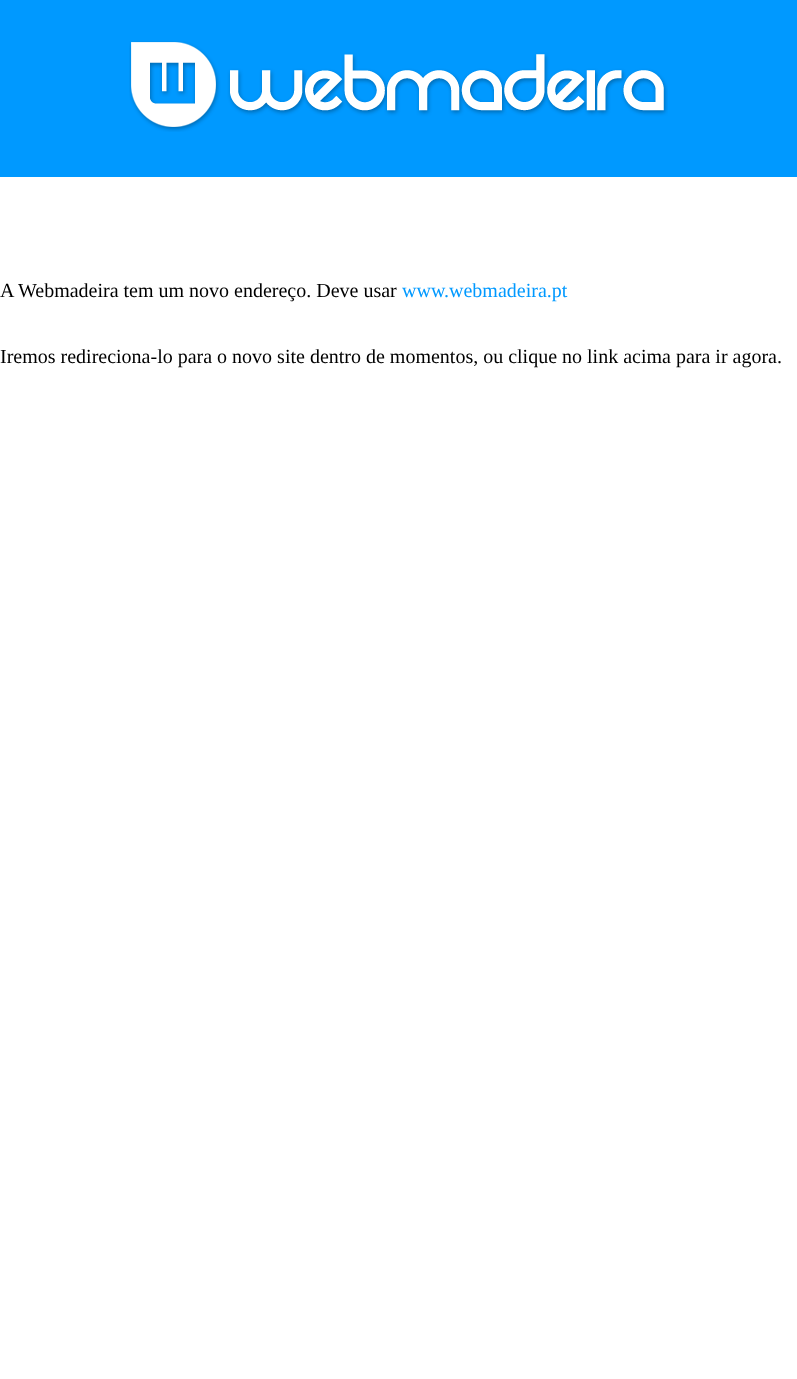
<svg xmlns="http://www.w3.org/2000/svg" width="797" height="1379" viewBox="0 0 797 1379">
  <style>
    .t1 { font: 20px Liberation Serif; fill: #000; }
    .t2 { font: 20px Liberation Serif; fill: #09f; }
  </style>
  <rect width="100%" height="100%" fill="#fff"/>
  <rect x="0" y="0" width="797" height="177" fill="#09f"/>
  <image x="129" y="41" width="539" height="91" href="images/1.png"/>
  <text x="0" y="297" class="t1">A Webmadeira tem um novo endereço. Deve usar</text>
  <text x="402" y="297" class="t2">www.webmadeira.pt</text>
  <text x="0" y="363" class="t1">Iremos redireciona-lo para o novo site dentro de momentos, ou clique no link acima para ir agora.</text>
</svg>
